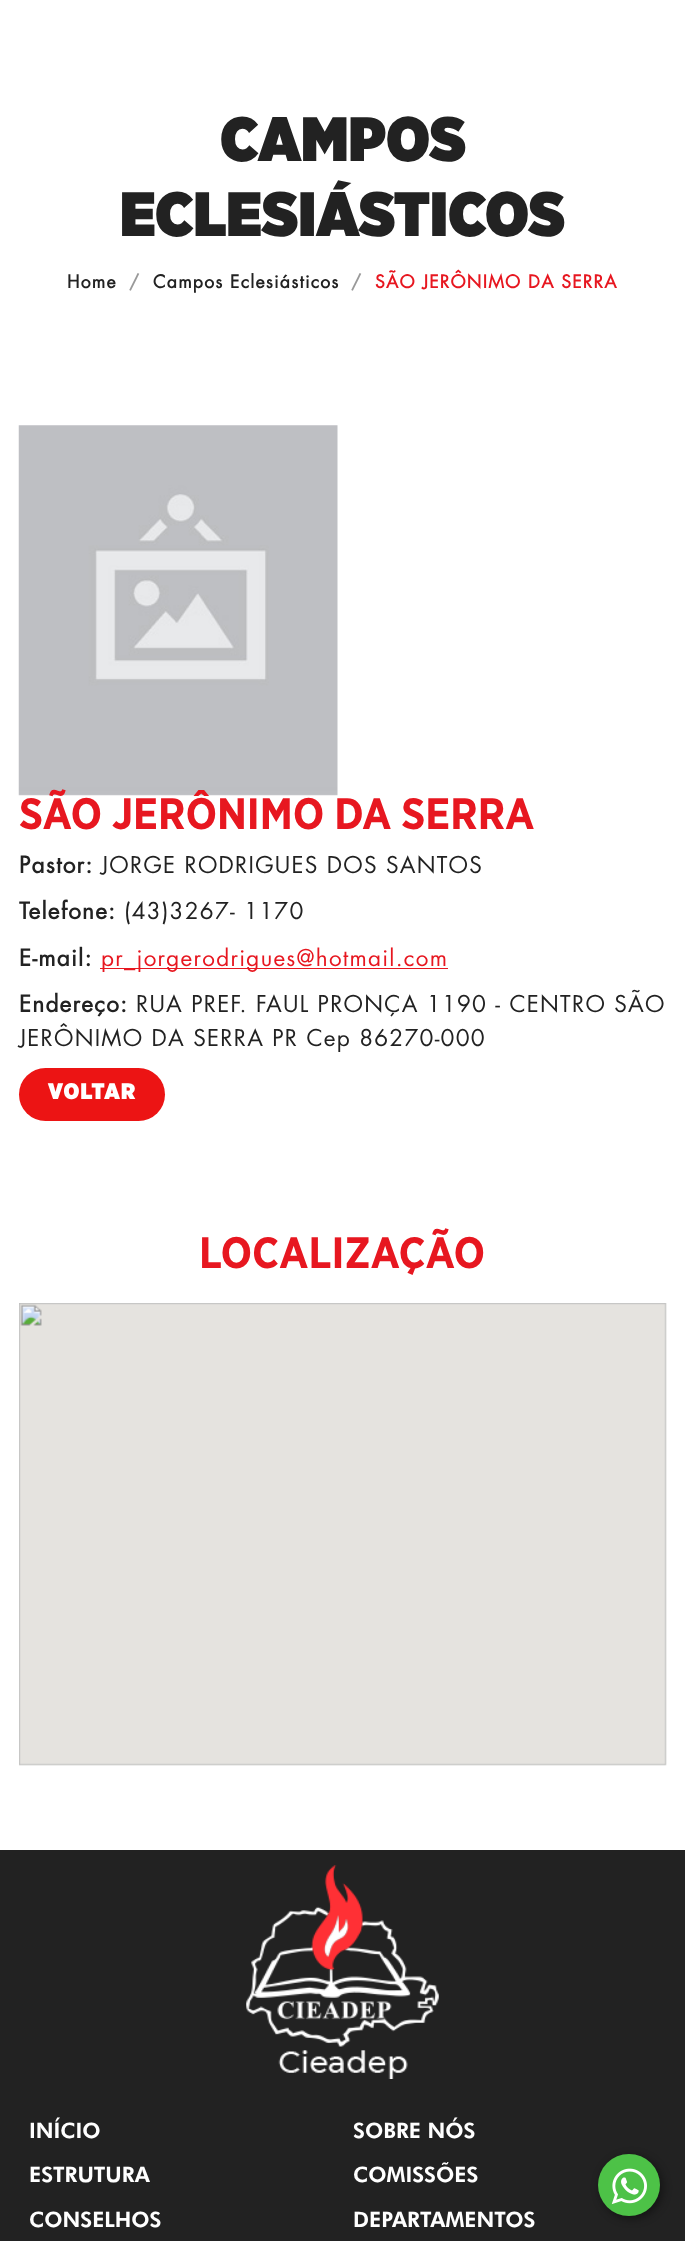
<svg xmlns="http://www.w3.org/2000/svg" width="685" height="2241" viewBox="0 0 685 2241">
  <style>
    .t1 { font: 500 62.5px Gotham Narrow; fill: #222; }
    .t2 { font: bold 17.5px Futura; letter-spacing: 1.25px; fill: #222; }
    .t3 { font: bold 17.5px Futura; letter-spacing: 1.25px; fill: #999; }
    .t4 { font: bold 17.5px Futura; letter-spacing: 1.25px; fill: #e71720; }
    .t5 { font: bold 43.75px Gotham Narrow; fill: #e71720; }
    .t6 { font: bold 22.5px Futura; letter-spacing: 1.25px; fill: #222; }
    .t7 { font: 22.5px Futura; letter-spacing: 1.25px; fill: #222; }
    .t8 { font: 22.5px Futura; letter-spacing: 1.25px; fill: #e71720; }
    .t9 { font: 500 22.5px Gotham Narrow; letter-spacing: 1.25px; fill: #fff; }
    .t10 { font: 900 21.25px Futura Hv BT; fill: #fff; }
  </style>
  <rect width="100%" height="100%" fill="#fff"/>
  <text x="220" y="161" class="t1">CAMPOS</text>
  <text x="120" y="236" class="t1">ECLESIÁSTICOS</text>
  <text x="67" y="288" class="t2">Home</text>
  <text x="129" y="288" class="t3">/</text>
  <text x="153" y="288" class="t2">Campos Eclesiásticos</text>
  <text x="351" y="288" class="t3">/</text>
  <text x="375" y="288" class="t4">SÃO JERÔNIMO DA SERRA</text>
  <image x="18" y="425" width="320" height="371" href="images/1.png"/>
  <text x="19" y="829" class="t5">SÃO JERÔNIMO DA SERRA</text>
  <text x="19" y="873" class="t6">Pastor:</text>
  <text x="101" y="873" class="t7">JORGE RODRIGUES DOS SANTOS</text>
  <text x="19" y="919" class="t6">Telefone:</text>
  <text x="124" y="919" class="t7">(43)3267- 1170</text>
  <text x="19" y="966" class="t6">E-mail:</text>
  <rect x="100" y="968" width="348" height="1" fill="#e71720"/>
  <text x="101" y="966" class="t8">pr_jorgerodrigues@hotmail.com</text>
  <text x="19" y="1012" class="t6">Endereço:</text>
  <text x="136" y="1012" class="t7">RUA PREF. FAUL PRONÇA 1190 - CENTRO SÃO</text>
  <text x="19" y="1046" class="t7">JERÔNIMO DA SERRA PR Cep 86270-000</text>
  <rect x="19" y="1068" width="146" height="53" rx="26.5" fill="#ec1414"/>
  <text x="48" y="1099" class="t9">VOLTAR</text>
  <text x="199" y="1268" class="t5">LOCALIZAÇÃO</text>
  <image x="19" y="1303" width="648" height="463" href="images/2.png"/>
  <rect x="0" y="1850" width="685" height="391" fill="#222"/>
  <image x="246" y="1865" width="193" height="214" href="images/3.png"/>
  <text x="29" y="2138" class="t10">INÍCIO</text>
  <text x="353" y="2138" class="t10">SOBRE NÓS</text>
  <text x="29" y="2182" class="t10">ESTRUTURA</text>
  <text x="353" y="2182" class="t10">COMISSÕES</text>
  <text x="29" y="2227" class="t10">CONSELHOS</text>
  <text x="353" y="2227" class="t10">DEPARTAMENTOS</text>
  <rect x="600" y="2156" width="63" height="63" rx="31.5" fill="#00000066" filter="blur(4px)"/>
  <circle cx="629" cy="2185" r="31" fill="#4dc247"/>
  <image x="611" y="2168" width="36" height="37" href="images/4.png"/>
</svg>
